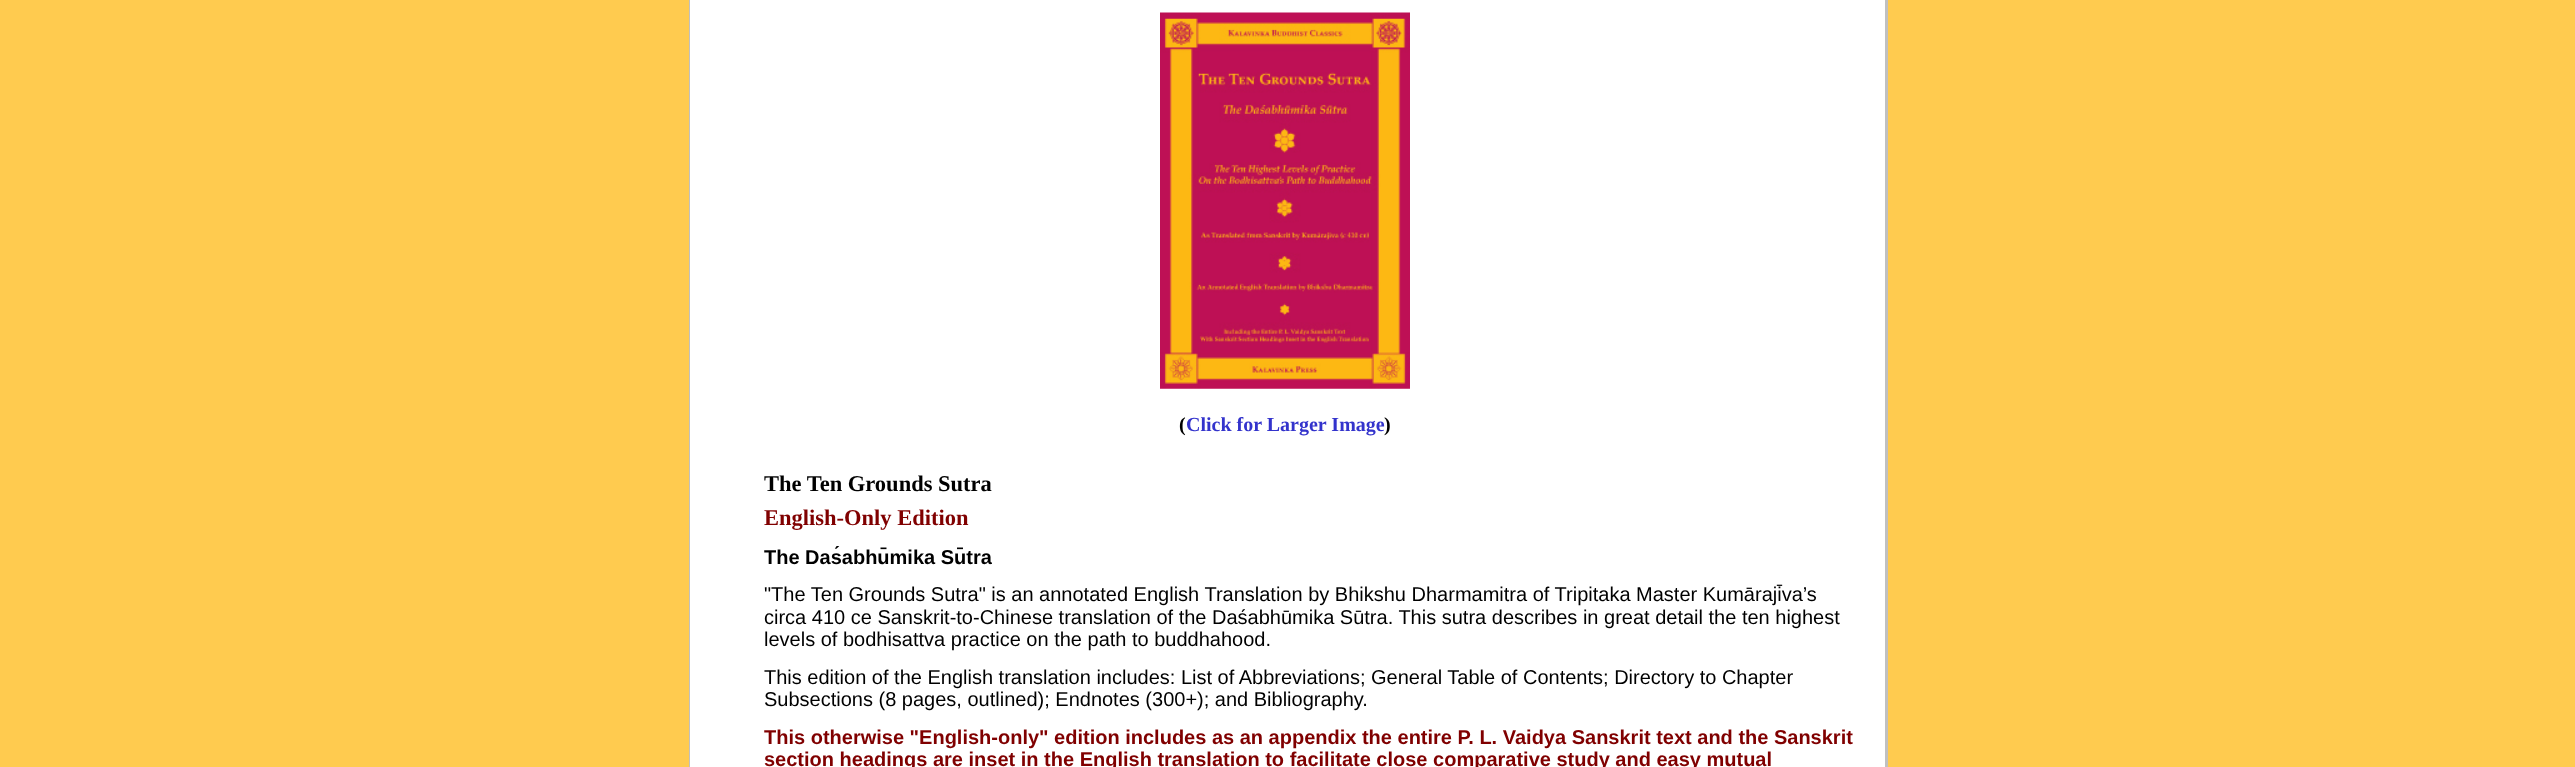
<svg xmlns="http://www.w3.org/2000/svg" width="2575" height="767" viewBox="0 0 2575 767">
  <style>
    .t1 { font: bold 20px Liberation Serif; fill: #000; }
    .t2 { font: bold 20px Liberation Serif; fill: #33c; }
    .t3 { font: bold 22.5px Liberation Serif; fill: #000; }
    .t4 { font: bold 22.5px Liberation Serif; fill: #800000; }
    .t5 { font: bold 20px Liberation Sans; fill: #000; }
    .t6 { font: 20px Liberation Sans; fill: #000; }
    .t7 { font: bold 20px Liberation Sans; fill: #800000; }
  </style>
  <rect width="100%" height="100%" fill="#ffcb4f"/>
  <rect x="690" y="0" width="1195" height="767" fill="#fff"/>
  <rect x="1885" y="0" width="3" height="767" fill="#c0c0c0"/>
  <rect x="689" y="0" width="1" height="767" fill="#c0c0c0"/>
  <image x="1160" y="12" width="250" height="377" href="images/1.png"/>
  <text x="1179" y="431" class="t1">(</text>
  <text x="1186" y="431" class="t2">Click for Larger Image</text>
  <text x="1384" y="431" class="t1">)</text>
  <text x="764" y="491" class="t3">The Ten Grounds Sutra</text>
  <text x="764" y="525" class="t4">English-Only Edition</text>
  <text x="764" y="564" class="t5">The Daśabhūmika Sūtra</text>
  <text x="764" y="601" class="t6">"The Ten Grounds Sutra" is an annotated English Translation by Bhikshu Dharmamitra of Tripitaka Master Kumārajīva’s</text>
  <text x="764" y="624" class="t6">circa 410 ce Sanskrit-to-Chinese translation of the Daśabhūmika Sūtra. This sutra describes in great detail the ten highest</text>
  <text x="764" y="646" class="t6">levels of bodhisattva practice on the path to buddhahood.</text>
  <text x="764" y="684" class="t6">This edition of the English translation includes: List of Abbreviations; General Table of Contents; Directory to Chapter</text>
  <text x="764" y="706" class="t6">Subsections (8 pages, outlined); Endnotes (300+); and Bibliography.</text>
  <text x="764" y="744" class="t7">This otherwise "English-only" edition includes as an appendix the entire P. L. Vaidya Sanskrit text and the Sanskrit</text>
  <rect x="1745" y="733" width="1" height="11" fill="#fff"/>
  <text x="764" y="766" class="t7">section headings are inset in the English translation to facilitate close comparative study and easy mutual</text>
</svg>
